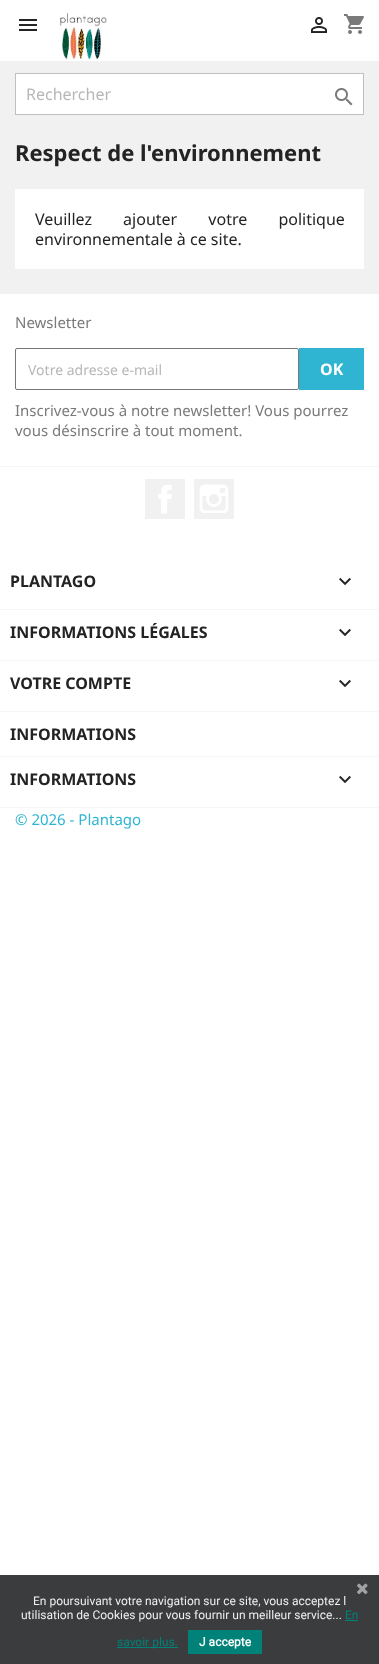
<svg xmlns="http://www.w3.org/2000/svg" width="379" height="1664" viewBox="0 0 379 1664">
  <style>
    .t1 { font: 16px Noto Sans; fill: #b7b7b7; }
    .t2 { font: bold 22px Noto Sans; fill: #232323; }
    .t3 { font: 16px Noto Sans; fill: #232323; }
    .t4 { font: 15px Noto Sans; fill: #7a7a7a; }
    .t5 { font: 14px Noto Sans; fill: #b7b7b7; }
    .t6 { font: bold 16px Noto Sans; fill: #fff; }
    .t7 { font: bold 16px Noto Sans; fill: #232323; }
    .t8 { font: 15px Noto Sans; fill: #2fb5d2; }
    .t9 { font: 12px Roboto; fill: #efefef; }
    .t10 { font: 12px Roboto; fill: #008279; }
    .t11 { font: bold 12px Roboto; fill: #fff; }
  </style>
  <rect width="100%" height="100%" fill="#fff"/>
  <rect x="0" y="61" width="379" height="233" fill="#f1f1f1"/>
  <image x="19" y="19" width="18" height="12" href="images/1.png"/>
  <image x="59" y="13" width="48" height="47" href="images/2.png"/>
  <image x="311" y="17" width="16" height="16" href="images/3.png"/>
  <image x="344" y="14" width="20" height="20" href="images/4.png"/>
  <rect x="15.5" y="73.5" width="348" height="41" fill="#fff" stroke="#bfbfbf"/>
  <text x="26" y="100" class="t1">Rechercher</text>
  <image x="335" y="88" width="18" height="18" href="images/5.png"/>
  <text x="15" y="161" class="t2">Respect de l'environnement</text>
  <rect x="15" y="189" width="349" height="80" fill="#fff"/>
  <text x="35" y="225" word-spacing="27" class="t3">Veuillez ajouter votre politique</text>
  <text x="35" y="245" class="t3">environnementale à ce site.</text>
  <rect x="0" y="466" width="379" height="1" fill="#f6f6f6"/>
  <text x="15" y="328" class="t4">Newsletter</text>
  <rect x="15.5" y="348.5" width="283" height="41" rx="1.5" fill="none" stroke="#767676"/>
  <text x="28" y="375" class="t5">Votre adresse e-mail</text>
  <rect x="299" y="348" width="65" height="42" fill="#2fb5d2"/>
  <text x="320" y="375" class="t6">OK</text>
  <text x="15" y="416" class="t4">Inscrivez-vous à notre newsletter! Vous pourrez</text>
  <text x="15" y="436" class="t4">vous désinscrire à tout moment.</text>
  <rect x="145" y="479" width="40" height="40" fill="#f1f1f1"/>
  <image x="158" y="485" width="14" height="29" href="images/6.png"/>
  <rect x="194" y="479" width="40" height="40" fill="#f1f1f1"/>
  <image x="199" y="484" width="30" height="29" href="images/7.png"/>
  <rect x="0" y="609" width="379" height="1" fill="#f6f6f6"/>
  <text x="10" y="587" class="t7">PLANTAGO</text>
  <image x="339" y="577" width="12" height="9" href="images/8.png"/>
  <rect x="0" y="660" width="379" height="1" fill="#f6f6f6"/>
  <text x="10" y="638" class="t7">INFORMATIONS LÉGALES</text>
  <image x="339" y="628" width="12" height="9" href="images/8.png"/>
  <rect x="0" y="711" width="379" height="1" fill="#f6f6f6"/>
  <text x="10" y="689" class="t7">VOTRE COMPTE</text>
  <image x="339" y="679" width="12" height="9" href="images/8.png"/>
  <rect x="0" y="756" width="379" height="1" fill="#f6f6f6"/>
  <text x="10" y="740" class="t7">INFORMATIONS</text>
  <rect x="0" y="807" width="379" height="1" fill="#f6f6f6"/>
  <text x="10" y="785" class="t7">INFORMATIONS</text>
  <image x="339" y="775" width="12" height="9" href="images/8.png"/>
  <text x="15" y="825" class="t8">© 2026 - Plantago</text>
  <rect x="0" y="1575" width="379" height="89" fill="#3a3c3e"/>
  <image x="357" y="1583" width="11" height="12" href="images/9.png"/>
  <text x="33" y="1605" class="t9">En poursuivant votre navigation sur ce site, vous acceptez l</text>
  <text x="21" y="1619" class="t9">utilisation de Cookies pour vous fournir un meilleur service...</text>
  <text x="345" y="1619" class="t10">En</text>
  <rect x="345" y="1620" width="13" height="1" fill="#008279"/>
  <rect x="117" y="1647" width="61" height="1" fill="#008279"/>
  <text x="117" y="1646" class="t10">savoir plus.</text>
  <rect x="188" y="1630" width="74" height="24" fill="#008279"/>
  <text x="199" y="1646" class="t11">J accepte</text>
</svg>
